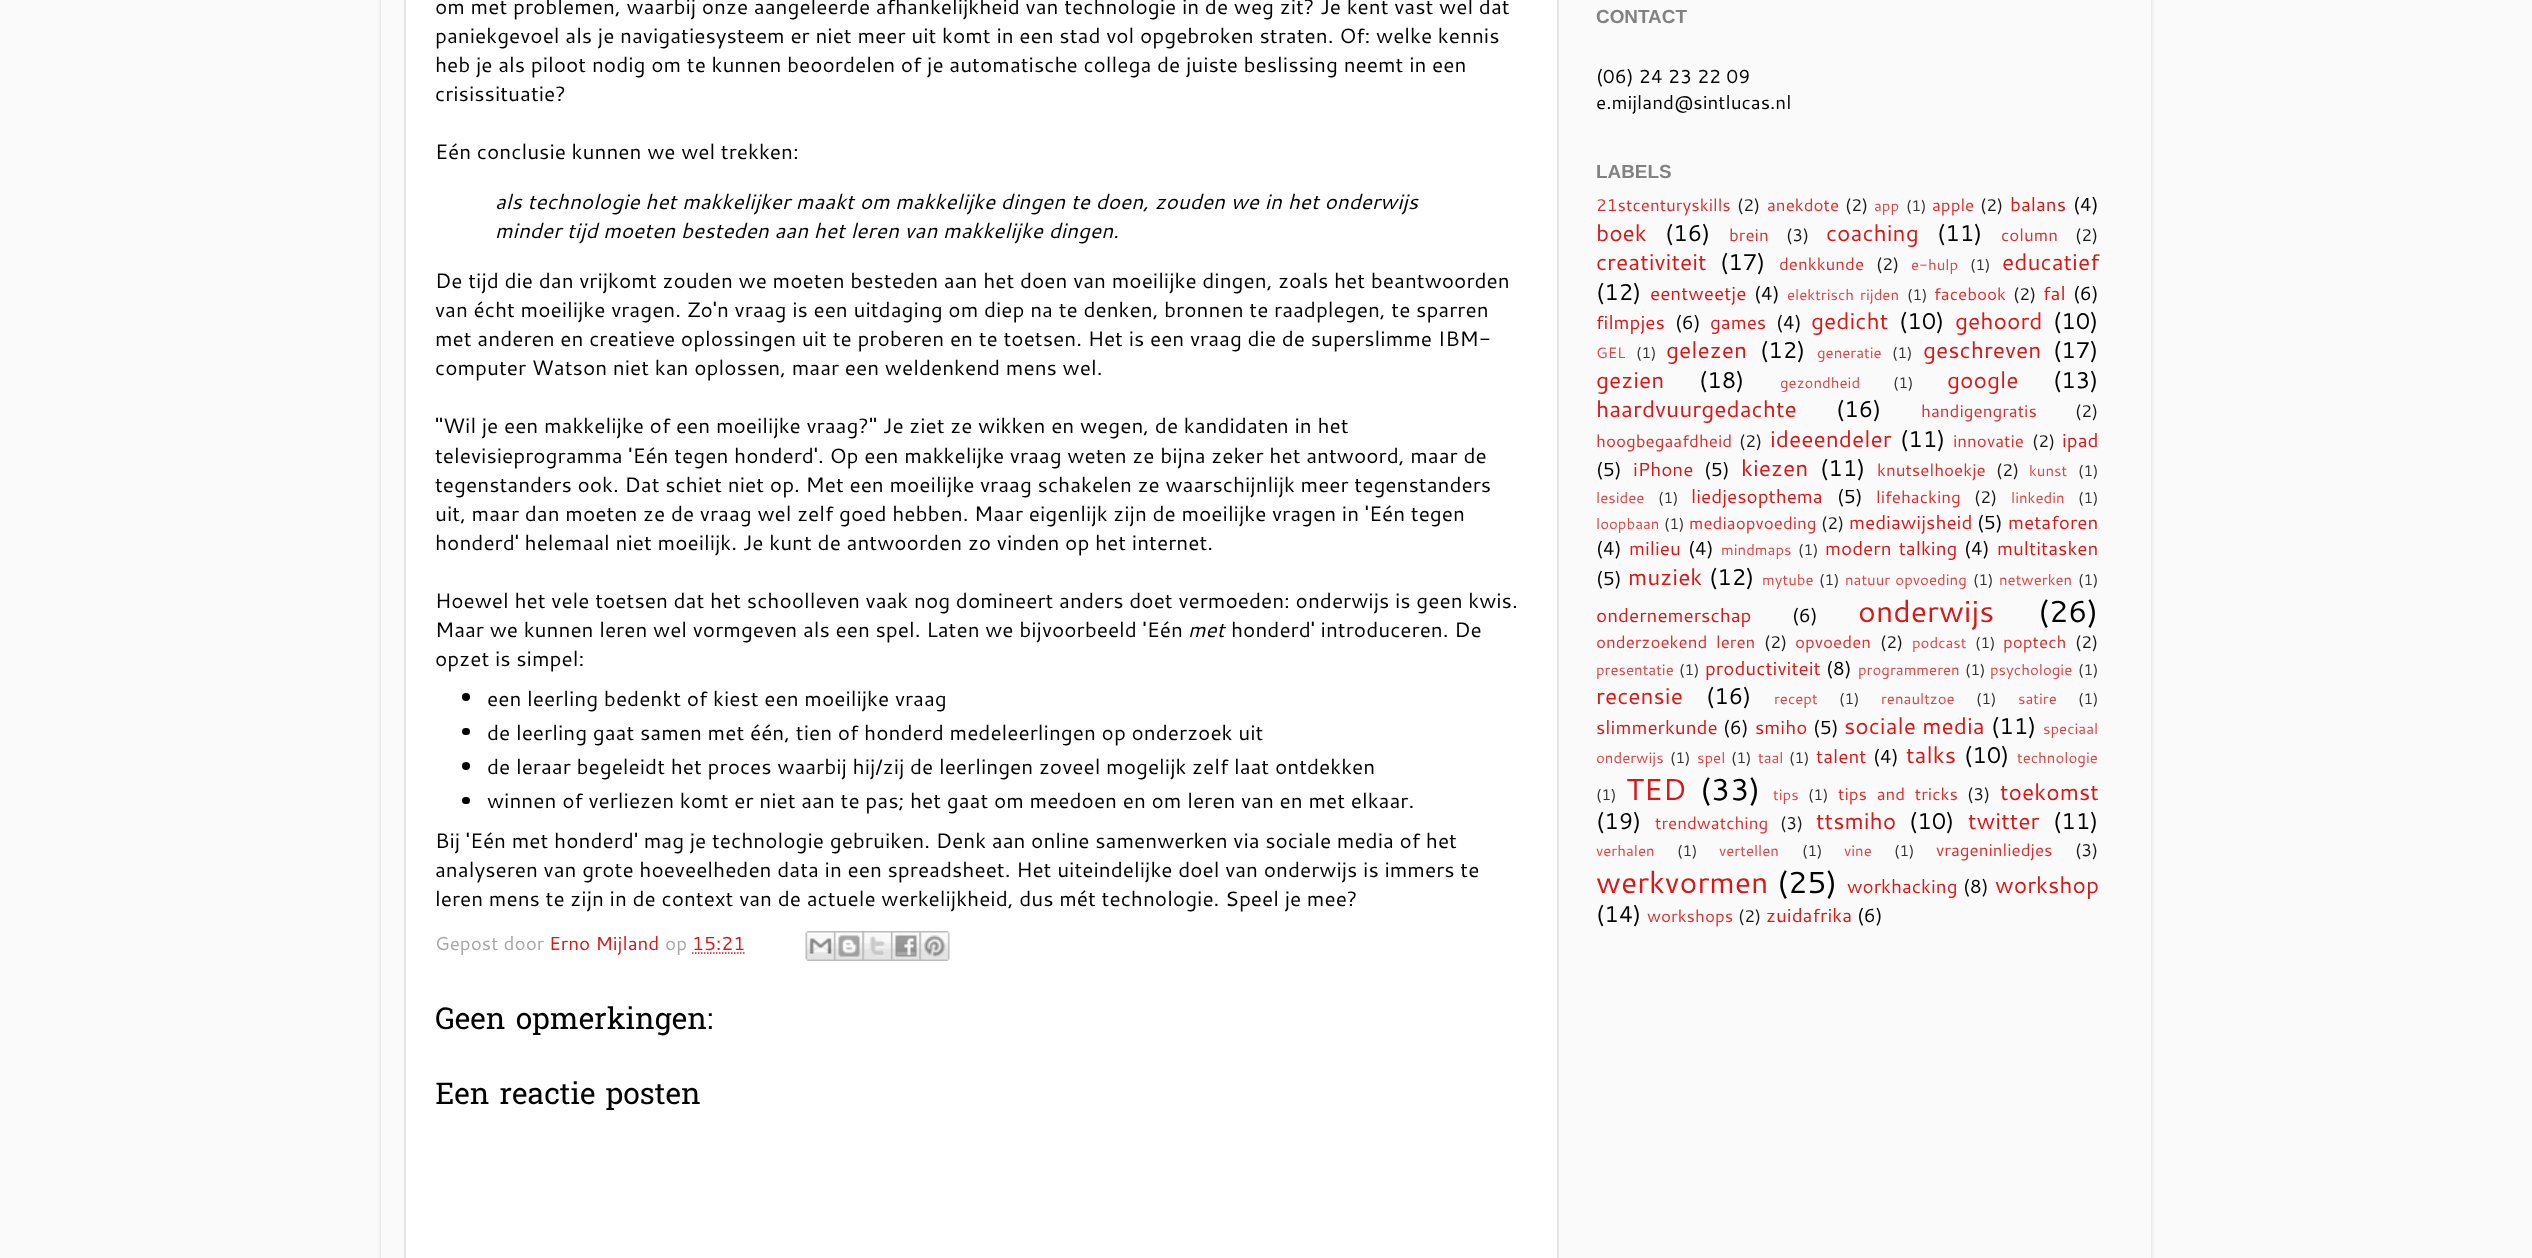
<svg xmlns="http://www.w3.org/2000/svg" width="2532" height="1258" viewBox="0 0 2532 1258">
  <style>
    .t1 { font: 20.8px Cantarell; fill: #000; }
    .t2 { font: italic 20.8px Cantarell; fill: #000; }
    .t3 { font: 18.9px Cantarell; fill: #a7a7a7; }
    .t4 { font: 18.9px Cantarell; fill: #d91818; }
    .t5 { font: 30px Hanuman; fill: #000; }
    .t6 { font: bold 18.9px Liberation Sans; fill: #828282; }
    .t7 { font: 18.9px Cantarell; fill: #000; }
    .t8 { font: 17px Cantarell; fill: #dc2f2f; }
    .t9 { font: 17px Cantarell; fill: #191919; }
    .t10 { font: 15px Cantarell; fill: #e04545; }
    .t11 { font: 15px Cantarell; fill: #323232; }
    .t12 { font: 22.75px Cantarell; fill: #d91818; }
    .t13 { font: 22.75px Cantarell; fill: #000; }
    .t14 { font: 30.25px Cantarell; fill: #d91818; }
    .t15 { font: 30.25px Cantarell; fill: #000; }
  </style>
  <defs>
    <clipPath id="clip1"><path d="M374 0H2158V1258H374ZM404-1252H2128C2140.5-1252 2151-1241.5 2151-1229V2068C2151 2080.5 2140.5 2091 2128 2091H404C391.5 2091 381 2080.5 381 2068V-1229C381-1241.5 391.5-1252 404-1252Z" clip-rule="evenodd"/></clipPath>
  </defs>
  <rect width="100%" height="100%" fill="#fafafa"/>
  <g clip-path="url(#clip1)">
    <rect x="381" y="-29" width="1770" height="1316" rx="23" fill="#00000026" filter="blur(2px)"/>
  </g>
  <rect x="405" y="-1" width="1153" height="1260" fill="#fff" stroke="#e4e4e4" stroke-width="2"/>
  <text x="435" y="14" class="t1">om met problemen, waarbij onze aangeleerde afhankelijkheid van technologie in de weg zit? Je kent vast wel dat</text>
  <text x="435" y="43" class="t1">paniekgevoel als je navigatiesysteem er niet meer uit komt in een stad vol opgebroken straten. Of: welke kennis</text>
  <text x="435" y="72" class="t1">heb je als piloot nodig om te kunnen beoordelen of je automatische collega de juiste beslissing neemt in een</text>
  <text x="435" y="101" class="t1">crisissituatie?</text>
  <text x="435" y="159" class="t1">Eén conclusie kunnen we wel trekken:</text>
  <text x="495" y="209" class="t2">als technologie het makkelijker maakt om makkelijke dingen te doen, zouden we in het onderwijs</text>
  <text x="495" y="238" class="t2">minder tijd moeten besteden aan het leren van makkelijke dingen.</text>
  <text x="435" y="288" class="t1">De tijd die dan vrijkomt zouden we moeten besteden aan het doen van moeilijke dingen, zoals het beantwoorden</text>
  <text x="435" y="317" class="t1">van écht moeilijke vragen. Zo'n vraag is een uitdaging om diep na te denken, bronnen te raadplegen, te sparren</text>
  <text x="435" y="346" class="t1">met anderen en creatieve oplossingen uit te proberen en te toetsen. Het is een vraag die de superslimme IBM-</text>
  <text x="435" y="375" class="t1">computer Watson niet kan oplossen, maar een weldenkend mens wel.</text>
  <text x="435" y="433" class="t1">"Wil je een makkelijke of een moeilijke vraag?" Je ziet ze wikken en wegen, de kandidaten in het</text>
  <text x="435" y="463" class="t1">televisieprogramma 'Eén tegen honderd'. Op een makkelijke vraag weten ze bijna zeker het antwoord, maar de</text>
  <text x="435" y="492" class="t1">tegenstanders ook. Dat schiet niet op. Met een moeilijke vraag schakelen ze waarschijnlijk meer tegenstanders</text>
  <text x="435" y="521" class="t1">uit, maar dan moeten ze de vraag wel zelf goed hebben. Maar eigenlijk zijn de moeilijke vragen in 'Eén tegen</text>
  <text x="435" y="550" class="t1">honderd' helemaal niet moeilijk. Je kunt de antwoorden zo vinden op het internet.</text>
  <text x="435" y="608" class="t1">Hoewel het vele toetsen dat het schoolleven vaak nog domineert anders doet vermoeden: onderwijs is geen kwis.</text>
  <text x="435" y="637" class="t1">Maar we kunnen leren wel vormgeven als een spel. Laten we bijvoorbeeld 'Eén</text>
  <text x="1188" y="637" class="t2">met</text>
  <text x="1231" y="637" class="t1">honderd' introduceren. De</text>
  <text x="435" y="666" class="t1">opzet is simpel:</text>
  <circle cx="466" cy="697" r="4" fill="#000"/>
  <text x="487" y="706" class="t1">een leerling bedenkt of kiest een moeilijke vraag</text>
  <rect x="462" y="728" width="8" height="7" rx="3.5" fill="#000"/>
  <text x="487" y="740" class="t1">de leerling gaat samen met één, tien of honderd medeleerlingen op onderzoek uit</text>
  <circle cx="466" cy="766" r="4" fill="#000"/>
  <text x="487" y="774" class="t1">de leraar begeleidt het proces waarbij hij/zij de leerlingen zoveel mogelijk zelf laat ontdekken</text>
  <rect x="462" y="797" width="8" height="7" rx="3.5" fill="#000"/>
  <text x="487" y="808" class="t1">winnen of verliezen komt er niet aan te pas; het gaat om meedoen en om leren van en met elkaar.</text>
  <text x="435" y="848" class="t1">Bij 'Eén met honderd' mag je technologie gebruiken. Denk aan online samenwerken via sociale media of het</text>
  <text x="435" y="877" class="t1">analyseren van grote hoeveelheden data in een spreadsheet. Het uiteindelijke doel van onderwijs is immers te</text>
  <text x="435" y="906" class="t1">leren mens te zijn in de context van de actuele werkelijkheid, dus mét technologie. Speel je mee?</text>
  <text x="435" y="950" class="t3">Gepost door</text>
  <text x="549" y="950" class="t4">Erno Mijland</text>
  <text x="665" y="950" class="t3">op</text>
  <path d="M692 953H745.5" fill="none" stroke="#d91818" stroke-width="1.5" stroke-dasharray="1.5 1.5"/>
  <text x="692" y="950" class="t4">15:21</text>
  <image x="805" y="931" width="29" height="30" href="images/1.png"/>
  <image x="834" y="931" width="29" height="30" href="images/2.png"/>
  <image x="862" y="931" width="29" height="30" href="images/3.png"/>
  <image x="891" y="931" width="29" height="30" href="images/4.png"/>
  <image x="919" y="931" width="31" height="30" href="images/5.png"/>
  <text x="435" y="1029" class="t5">Geen opmerkingen:</text>
  <text x="435" y="1104" class="t5">Een reactie posten</text>
  <text x="1596" y="23" class="t6">CONTACT</text>
  <text x="1596" y="83" class="t7">(06) 24 23 22 09</text>
  <text x="1596" y="109" class="t7">e.mijland@sintlucas.nl</text>
  <text x="1596" y="178" class="t6">LABELS</text>
  <text x="1596" y="211" class="t8">21stcenturyskills</text>
  <text x="1737" y="211" class="t9">(2)</text>
  <text x="1767" y="211" class="t8">anekdote</text>
  <text x="1845" y="211" class="t9">(2)</text>
  <text x="1874" y="211" class="t10">app</text>
  <text x="1906" y="211" class="t11">(1)</text>
  <text x="1932" y="211" class="t8">apple</text>
  <text x="1980" y="211" class="t9">(2)</text>
  <text x="2010" y="211" class="t4">balans</text>
  <text x="2073" y="211" class="t7">(4)</text>
  <text x="1596" y="241" class="t12">boek</text>
  <text x="1665" y="241" class="t13">(16)</text>
  <text x="1729" y="241" class="t8">brein</text>
  <text x="1786" y="241" class="t9">(3)</text>
  <text x="1826" y="241" class="t12">coaching</text>
  <text x="1937" y="241" class="t13">(11)</text>
  <text x="2001" y="241" class="t8">column</text>
  <text x="2075" y="241" class="t9">(2)</text>
  <text x="1596" y="270" class="t12">creativiteit</text>
  <text x="1720" y="270" class="t13">(17)</text>
  <text x="1779" y="270" class="t8">denkkunde</text>
  <text x="1876" y="270" class="t9">(2)</text>
  <text x="1911" y="270" class="t10">e-hulp</text>
  <text x="1970" y="270" class="t11">(1)</text>
  <text x="2002" y="270" class="t12">educatief</text>
  <text x="1596" y="300" class="t13">(12)</text>
  <text x="1650" y="300" class="t4">eentweetje</text>
  <text x="1754" y="300" class="t7">(4)</text>
  <text x="1787" y="300" word-spacing="2" class="t10">elektrisch rijden</text>
  <text x="1907" y="300" class="t11">(1)</text>
  <text x="1934" y="300" class="t8">facebook</text>
  <text x="2013" y="300" class="t9">(2)</text>
  <text x="2043" y="300" class="t4">fal</text>
  <text x="2073" y="300" class="t7">(6)</text>
  <text x="1596" y="329" class="t4">filmpjes</text>
  <text x="1675" y="329" class="t7">(6)</text>
  <text x="1710" y="329" class="t4">games</text>
  <text x="1776" y="329" class="t7">(4)</text>
  <text x="1811" y="329" class="t12">gedicht</text>
  <text x="1899" y="329" class="t13">(10)</text>
  <text x="1955" y="329" class="t12">gehoord</text>
  <text x="2053" y="329" class="t13">(10)</text>
  <text x="1596" y="358" class="t10">GEL</text>
  <text x="1636" y="358" class="t11">(1)</text>
  <text x="1666" y="358" class="t12">gelezen</text>
  <text x="1760" y="358" class="t13">(12)</text>
  <text x="1817" y="358" class="t10">generatie</text>
  <text x="1892" y="358" class="t11">(1)</text>
  <text x="1923" y="358" class="t12">geschreven</text>
  <text x="2053" y="358" class="t13">(17)</text>
  <text x="1596" y="388" class="t12">gezien</text>
  <text x="1699" y="388" class="t13">(18)</text>
  <text x="1780" y="388" class="t10">gezondheid</text>
  <text x="1893" y="388" class="t11">(1)</text>
  <text x="1947" y="388" class="t12">google</text>
  <text x="2053" y="388" class="t13">(13)</text>
  <text x="1596" y="417" class="t12">haardvuurgedachte</text>
  <text x="1836" y="417" class="t13">(16)</text>
  <text x="1921" y="417" class="t8">handigengratis</text>
  <text x="2075" y="417" class="t9">(2)</text>
  <text x="1596" y="447" class="t8">hoogbegaafdheid</text>
  <text x="1739" y="447" class="t9">(2)</text>
  <text x="1770" y="447" class="t12">ideeendeler</text>
  <text x="1900" y="447" class="t13">(11)</text>
  <text x="1953" y="447" class="t8">innovatie</text>
  <text x="2032" y="447" class="t9">(2)</text>
  <text x="2062" y="447" class="t4">ipad</text>
  <text x="1596" y="476" class="t7">(5)</text>
  <text x="1633" y="476" class="t4">iPhone</text>
  <text x="1704" y="476" class="t7">(5)</text>
  <text x="1741" y="476" class="t12">kiezen</text>
  <text x="1820" y="476" class="t13">(11)</text>
  <text x="1877" y="476" class="t8">knutselhoekje</text>
  <text x="1996" y="476" class="t9">(2)</text>
  <text x="2029" y="476" class="t10">kunst</text>
  <text x="2078" y="476" class="t11">(1)</text>
  <text x="1596" y="503" class="t10">lesidee</text>
  <text x="1658" y="503" class="t11">(1)</text>
  <text x="1691" y="503" class="t4">liedjesopthema</text>
  <text x="1837" y="503" class="t7">(5)</text>
  <text x="1876" y="503" class="t8">lifehacking</text>
  <text x="1974" y="503" class="t9">(2)</text>
  <text x="2011" y="503" class="t10">linkedin</text>
  <text x="2078" y="503" class="t11">(1)</text>
  <text x="1596" y="529" class="t10">loopbaan</text>
  <text x="1664" y="529" class="t11">(1)</text>
  <text x="1689" y="529" class="t8">mediaopvoeding</text>
  <text x="1821" y="529" class="t9">(2)</text>
  <text x="1849" y="529" class="t4">mediawijsheid</text>
  <text x="1977" y="529" class="t7">(5)</text>
  <text x="2008" y="529" class="t4">metaforen</text>
  <text x="1596" y="555" class="t7">(4)</text>
  <text x="1629" y="555" class="t4">milieu</text>
  <text x="1688" y="555" class="t7">(4)</text>
  <text x="1721" y="555" class="t10">mindmaps</text>
  <text x="1798" y="555" class="t11">(1)</text>
  <text x="1825" y="555" word-spacing="2" class="t4">modern talking</text>
  <text x="1964" y="555" class="t7">(4)</text>
  <text x="1997" y="555" class="t4">multitasken</text>
  <text x="1596" y="585" class="t7">(5)</text>
  <text x="1628" y="585" class="t12">muziek</text>
  <text x="1709" y="585" class="t13">(12)</text>
  <text x="1762" y="585" class="t10">mytube</text>
  <text x="1819" y="585" class="t11">(1)</text>
  <text x="1845" y="585" word-spacing="1" class="t10">natuur opvoeding</text>
  <text x="1973" y="585" class="t11">(1)</text>
  <text x="1999" y="585" class="t10">netwerken</text>
  <text x="2078" y="585" class="t11">(1)</text>
  <text x="1596" y="622" class="t4">ondernemerschap</text>
  <text x="1792" y="622" class="t7">(6)</text>
  <text x="1858" y="622" class="t14">onderwijs</text>
  <text x="2038" y="622" class="t15">(26)</text>
  <text x="1596" y="648" word-spacing="4" class="t8">onderzoekend leren</text>
  <text x="1764" y="648" class="t9">(2)</text>
  <text x="1795" y="648" class="t8">opvoeden</text>
  <text x="1880" y="648" class="t9">(2)</text>
  <text x="1912" y="648" class="t10">podcast</text>
  <text x="1975" y="648" class="t11">(1)</text>
  <text x="2003" y="648" class="t8">poptech</text>
  <text x="2075" y="648" class="t9">(2)</text>
  <text x="1596" y="675" class="t10">presentatie</text>
  <text x="1679" y="675" class="t11">(1)</text>
  <text x="1705" y="675" class="t4">productiviteit</text>
  <text x="1826" y="675" class="t7">(8)</text>
  <text x="1858" y="675" class="t10">programmeren</text>
  <text x="1965" y="675" class="t11">(1)</text>
  <text x="1990" y="675" class="t10">psychologie</text>
  <text x="2078" y="675" class="t11">(1)</text>
  <text x="1596" y="704" class="t12">recensie</text>
  <text x="1706" y="704" class="t13">(16)</text>
  <text x="1774" y="704" class="t10">recept</text>
  <text x="1839" y="704" class="t11">(1)</text>
  <text x="1881" y="704" class="t10">renaultzoe</text>
  <text x="1976" y="704" class="t11">(1)</text>
  <text x="2018" y="704" class="t10">satire</text>
  <text x="2078" y="704" class="t11">(1)</text>
  <text x="1596" y="734" class="t4">slimmerkunde</text>
  <text x="1723" y="734" class="t7">(6)</text>
  <text x="1755" y="734" class="t4">smiho</text>
  <text x="1813" y="734" class="t7">(5)</text>
  <text x="1844" y="734" class="t12">sociale media</text>
  <text x="1991" y="734" class="t13">(11)</text>
  <text x="2043" y="734" class="t10">speciaal</text>
  <text x="1596" y="763" class="t10">onderwijs</text>
  <text x="1670" y="763" class="t11">(1)</text>
  <text x="1697" y="763" class="t10">spel</text>
  <text x="1731" y="763" class="t11">(1)</text>
  <text x="1758" y="763" class="t10">taal</text>
  <text x="1789" y="763" class="t11">(1)</text>
  <text x="1816" y="763" class="t4">talent</text>
  <text x="1873" y="763" class="t7">(4)</text>
  <text x="1906" y="763" class="t12">talks</text>
  <text x="1964" y="763" class="t13">(10)</text>
  <text x="2017" y="763" class="t10">technologie</text>
  <text x="1596" y="800" class="t11">(1)</text>
  <text x="1626" y="800" class="t14">TED</text>
  <text x="1700" y="800" class="t15">(33)</text>
  <text x="1773" y="800" class="t10">tips</text>
  <text x="1808" y="800" class="t11">(1)</text>
  <text x="1838" y="800" word-spacing="5" class="t8">tips and tricks</text>
  <text x="1967" y="800" class="t9">(3)</text>
  <text x="2000" y="800" class="t12">toekomst</text>
  <text x="1596" y="829" class="t13">(19)</text>
  <text x="1655" y="829" class="t8">trendwatching</text>
  <text x="1780" y="829" class="t9">(3)</text>
  <text x="1816" y="829" class="t12">ttsmiho</text>
  <text x="1909" y="829" class="t13">(10)</text>
  <text x="1968" y="829" class="t12">twitter</text>
  <text x="2053" y="829" class="t13">(11)</text>
  <text x="1596" y="856" class="t10">verhalen</text>
  <text x="1677" y="856" class="t11">(1)</text>
  <text x="1719" y="856" class="t10">vertellen</text>
  <text x="1802" y="856" class="t11">(1)</text>
  <text x="1844" y="856" class="t10">vine</text>
  <text x="1894" y="856" class="t11">(1)</text>
  <text x="1936" y="856" class="t8">vrageninliedjes</text>
  <text x="2075" y="856" class="t9">(3)</text>
  <text x="1596" y="893" class="t14">werkvormen</text>
  <text x="1777" y="893" class="t15">(25)</text>
  <text x="1847" y="893" class="t4">workhacking</text>
  <text x="1963" y="893" class="t7">(8)</text>
  <text x="1995" y="893" class="t12">workshop</text>
  <text x="1596" y="922" class="t13">(14)</text>
  <text x="1647" y="922" class="t8">workshops</text>
  <text x="1738" y="922" class="t9">(2)</text>
  <text x="1766" y="922" class="t4">zuidafrika</text>
  <text x="1857" y="922" class="t7">(6)</text>
</svg>
